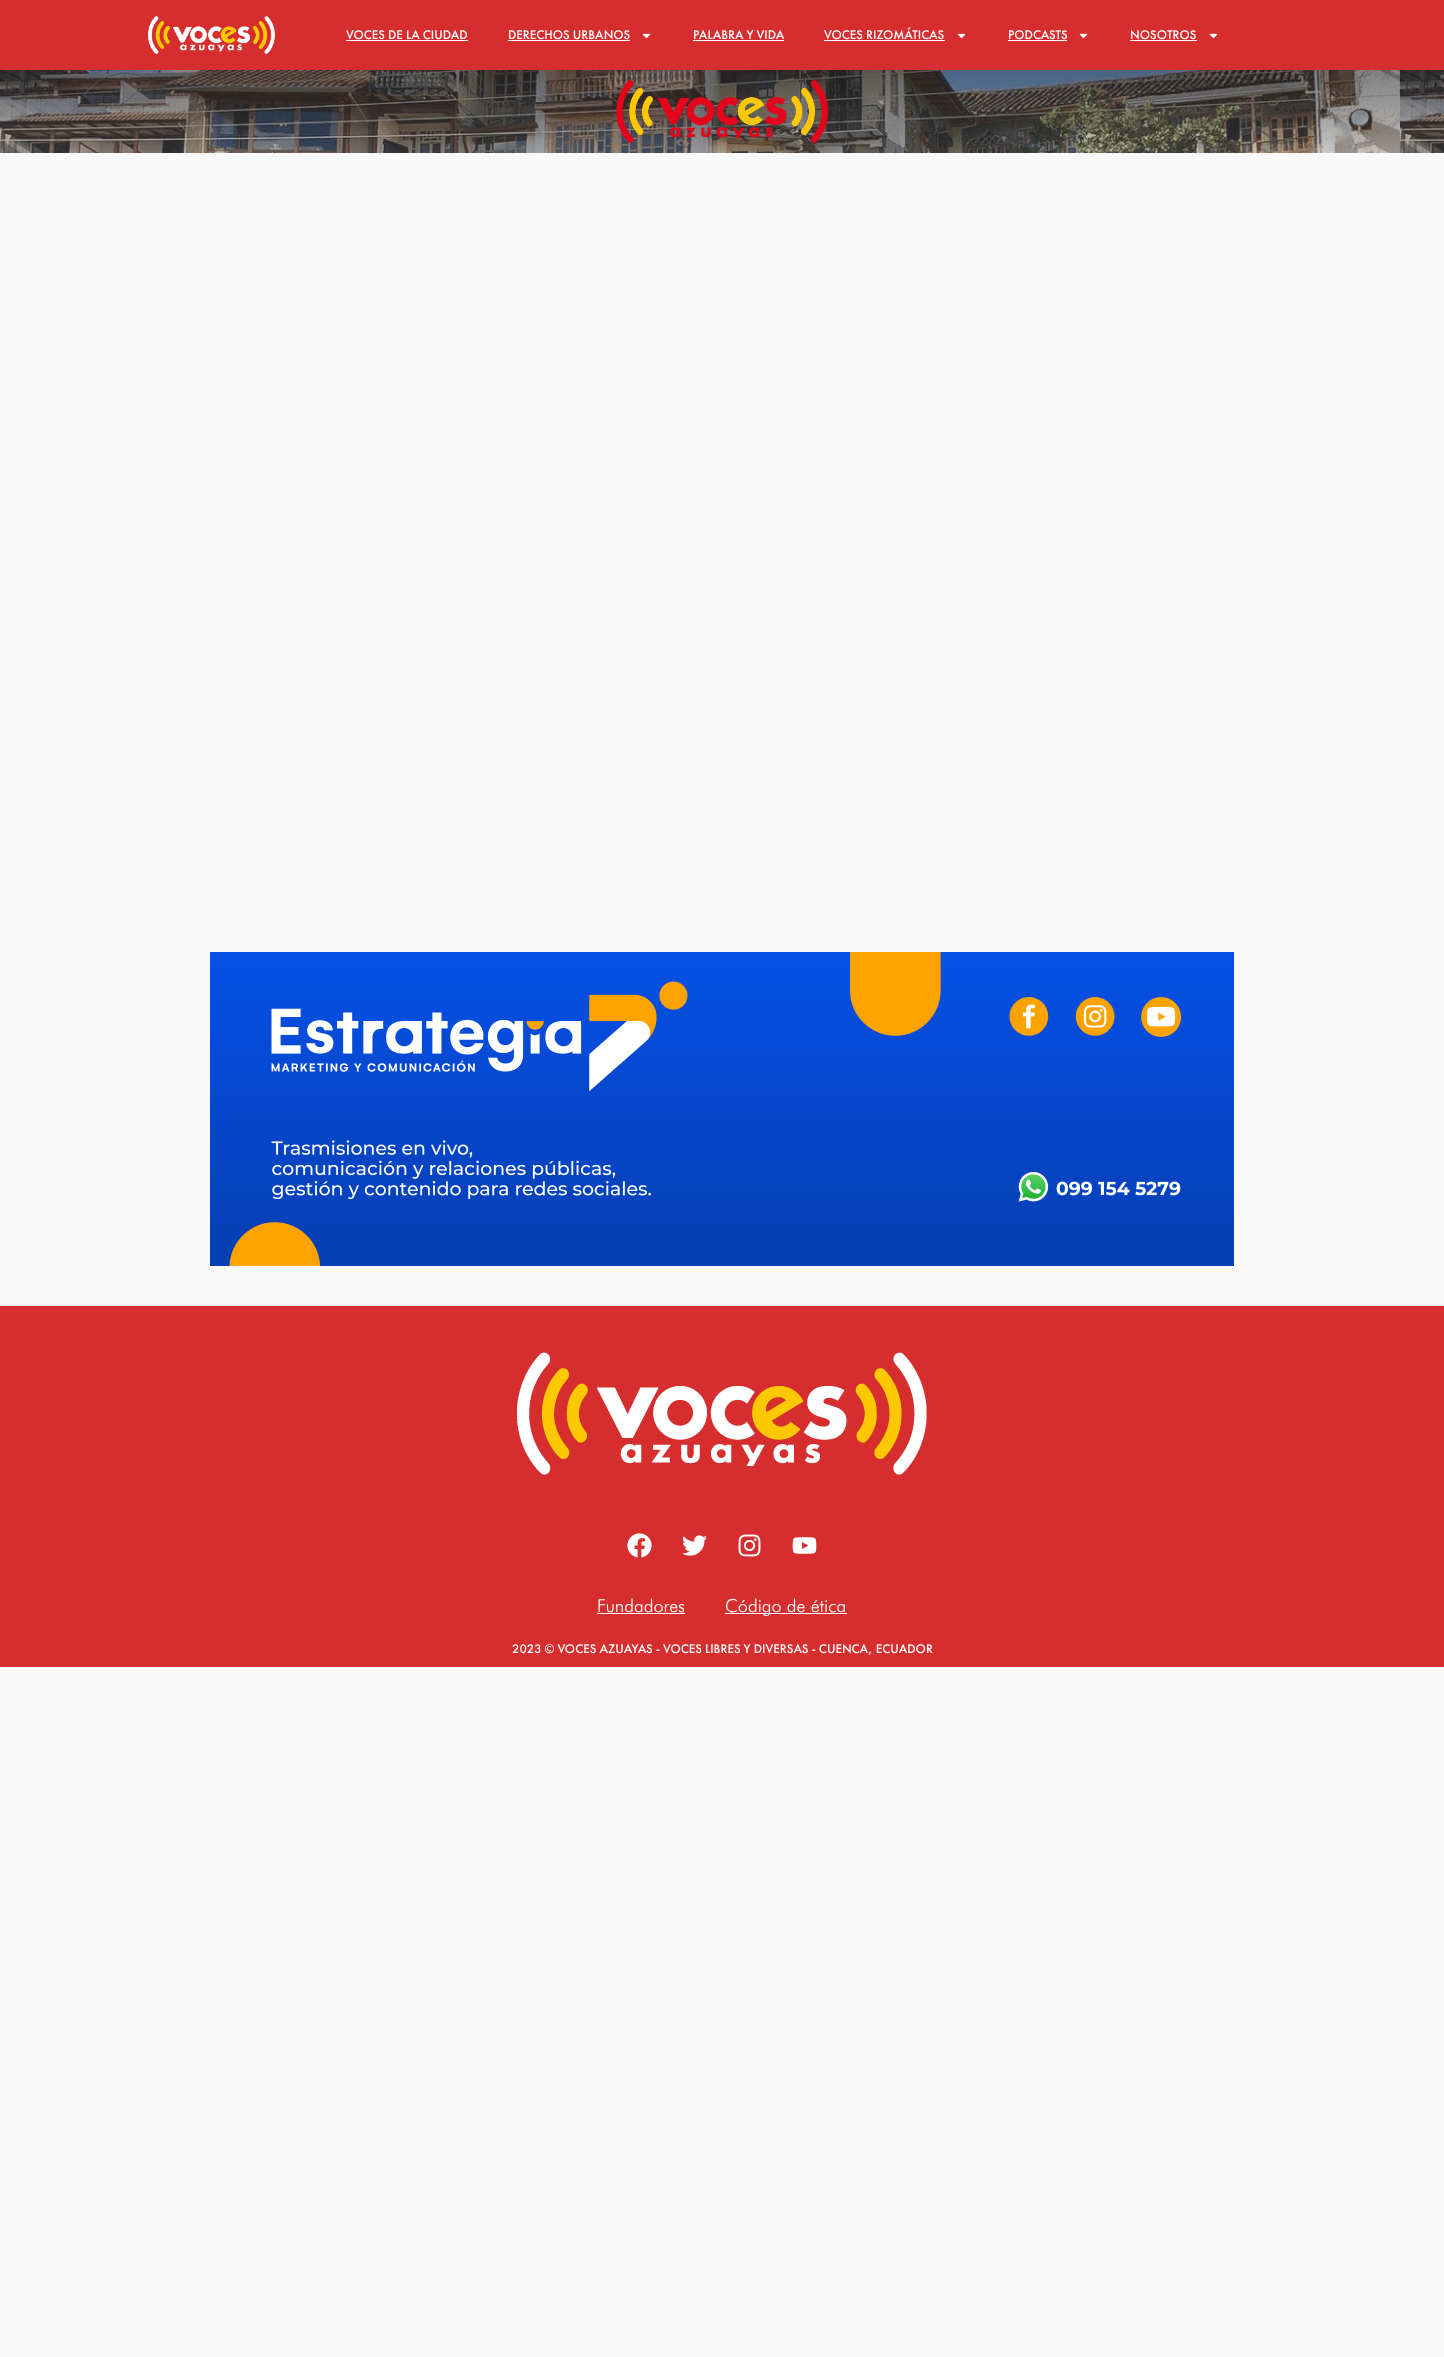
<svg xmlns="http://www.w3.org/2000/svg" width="1444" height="2357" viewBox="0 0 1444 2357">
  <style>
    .t1 { font: 500 13px Futura PT; fill: #fffefe; }
    .t2 { font: 300 18px Futura; fill: #fffefe; }
  </style>
  <rect width="100%" height="100%" fill="#f9f9f9"/>
  <rect x="0" y="0" width="1444" height="70" fill="#d62e2f"/>
  <image x="148" y="16" width="127" height="38" href="images/1.png"/>
  <text x="346" y="39" class="t1">VOCES DE LA CIUDAD</text>
  <rect x="346" y="40" width="122" height="1" fill="#fffefe"/>
  <text x="508" y="39" class="t1">DERECHOS URBANOS</text>
  <rect x="508" y="40" width="122" height="1" fill="#fffefe"/>
  <image x="642" y="33" width="9" height="6" href="images/2.png"/>
  <text x="693" y="39" class="t1">PALABRA Y VIDA</text>
  <rect x="693" y="40" width="91" height="1" fill="#fffefe"/>
  <text x="824" y="39" class="t1">VOCES RIZOMÁTICAS</text>
  <rect x="824" y="40" width="121" height="1" fill="#fffefe"/>
  <image x="957" y="33" width="9" height="6" href="images/2.png"/>
  <text x="1008" y="39" class="t1">PODCASTS</text>
  <rect x="1008" y="40" width="59" height="1" fill="#fffefe"/>
  <image x="1079" y="33" width="9" height="6" href="images/2.png"/>
  <text x="1130" y="39" class="t1">NOSOTROS</text>
  <rect x="1130" y="40" width="67" height="1" fill="#fffefe"/>
  <image x="1209" y="33" width="9" height="6" href="images/2.png"/>
  <image x="0" y="70" width="1444" height="83" href="images/3.png"/>
  <image x="616" y="80" width="212" height="63" href="images/4.png"/>
  <image x="210" y="952" width="1024" height="314" href="images/5.png"/>
  <rect x="0" y="1306" width="1444" height="361" fill="#d62e2f"/>
  <image x="517" y="1352" width="410" height="123" href="images/6.png"/>
  <image x="627" y="1533" width="25" height="25" href="images/7.png"/>
  <image x="682" y="1535" width="25" height="21" href="images/8.png"/>
  <image x="738" y="1534" width="23" height="23" href="images/9.png"/>
  <image x="792" y="1537" width="25" height="17" href="images/10.png"/>
  <text x="597" y="1612" class="t2">Fundadores</text>
  <rect x="597" y="1613" width="88" height="1" fill="#fffefe"/>
  <rect x="725" y="1613" width="122" height="1" fill="#fffefe"/>
  <text x="725" y="1612" class="t2">Código de ética</text>
  <text x="512" y="1653" class="t1">2023 © VOCES AZUAYAS - VOCES LIBRES Y DIVERSAS - CUENCA, ECUADOR</text>
</svg>
